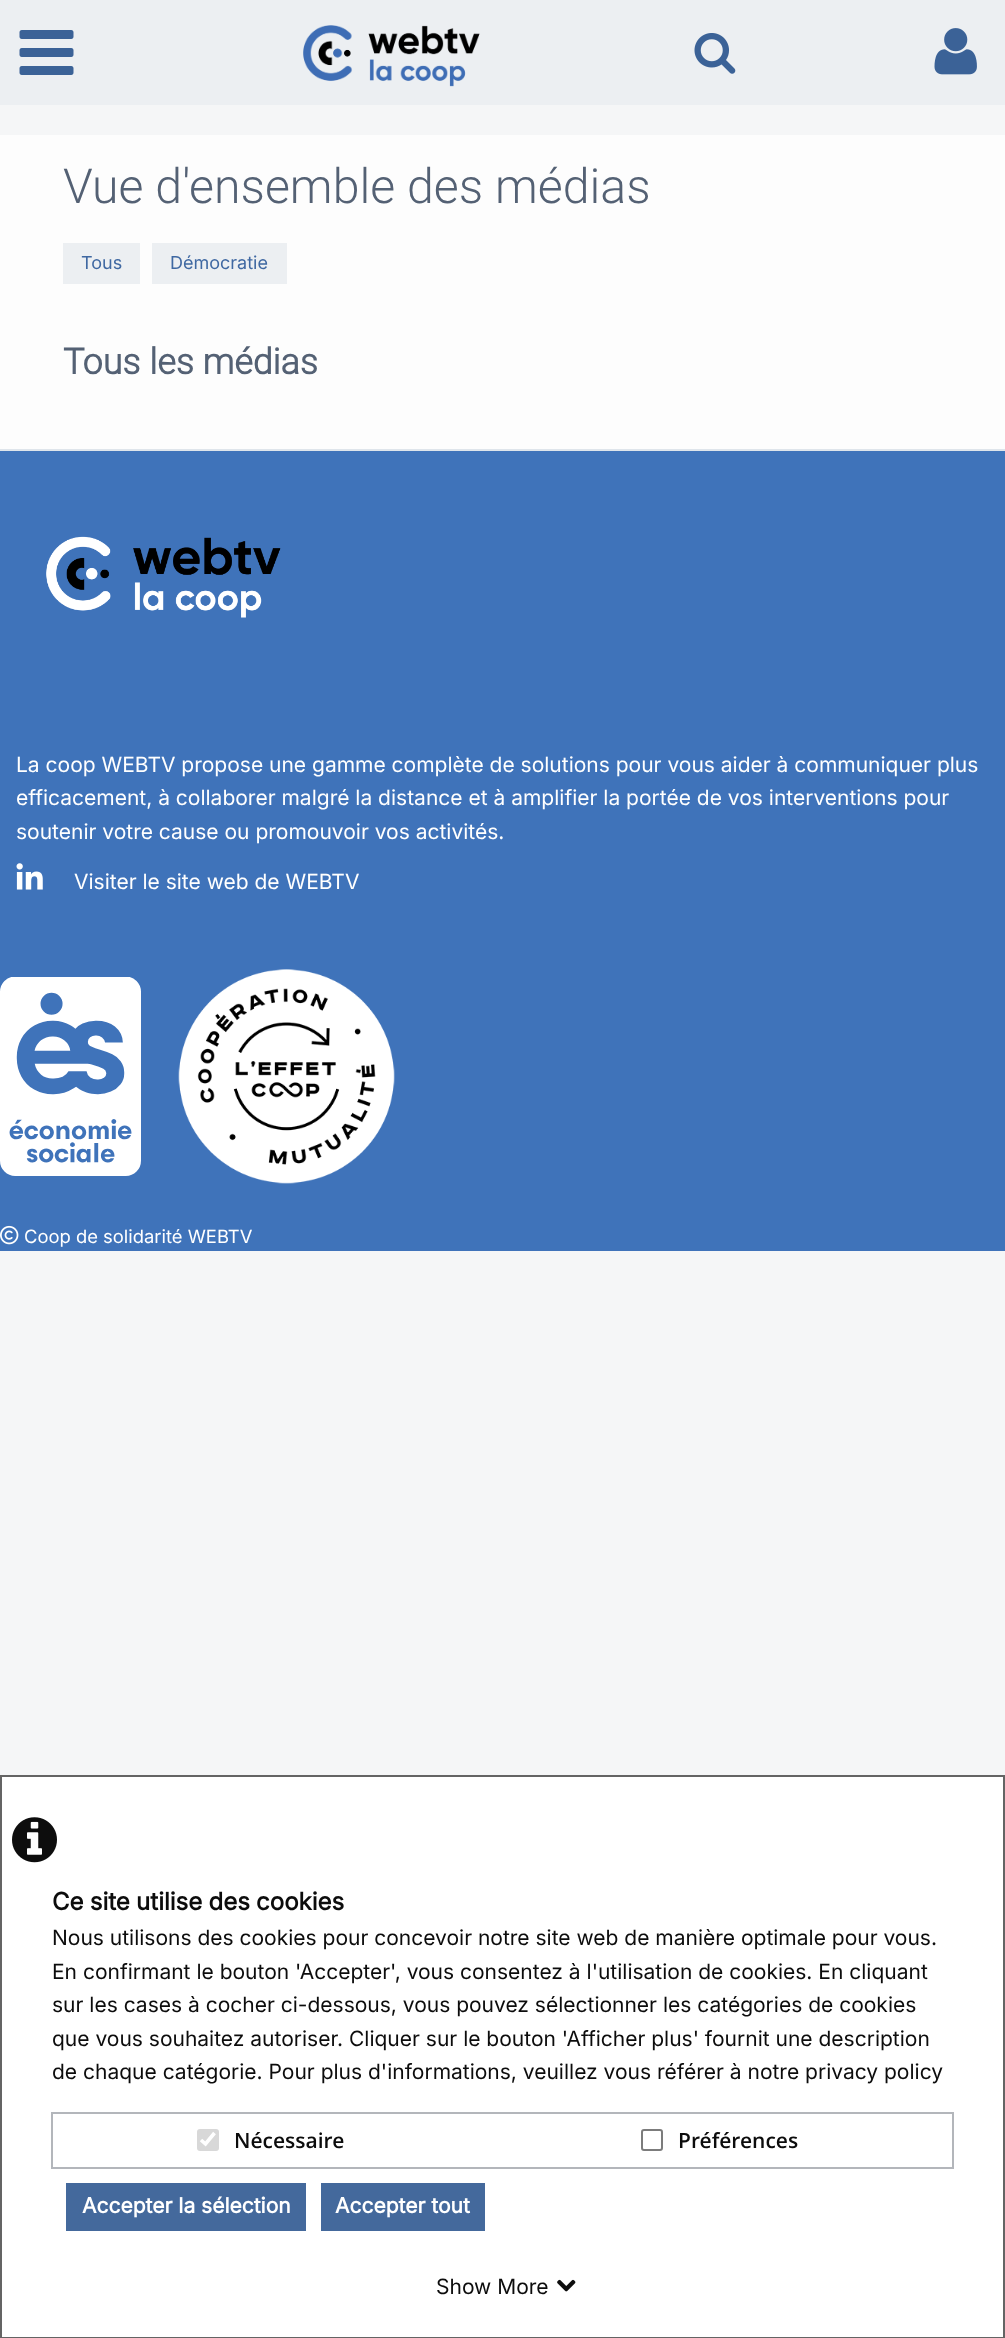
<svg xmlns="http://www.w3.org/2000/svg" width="1005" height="2338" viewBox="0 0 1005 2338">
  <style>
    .t1 { font: 300 48.25px Roboto; fill: #546174; }
    .t2 { font: 18px Inter; fill: #3f68a2; }
    .t3 { font: bold 35.75px Roboto; fill: #546174; }
    .t4 { font: 21px Inter; fill: #fff; }
    .t5 { font: 18.4px Inter; fill: #fff; }
    .t6 { font: bold 24px Inter; fill: #0c0c0c; }
    .t7 { font: 21px Inter; fill: #0c0c0c; }
    .t8 { font: 600 21px Open Sans; fill: #0c0c0c; }
    .t9 { font: bold 21px Inter; fill: #fff; }
  </style>
  <rect width="100%" height="100%" fill="#f5f6f7"/>
  <rect x="0" y="0" width="1005" height="105" fill="#eceff2"/>
  <image x="19" y="30" width="55" height="45" href="images/1.png"/>
  <image x="303" y="25" width="177" height="62" href="images/2.png"/>
  <image x="694" y="33" width="42" height="41" href="images/3.png"/>
  <image x="934" y="28" width="43" height="47" href="images/4.png"/>
  <rect x="0" y="135" width="1005" height="314" fill="#fdfdfd"/>
  <text x="63" y="203" class="t1">Vue d'ensemble des médias</text>
  <rect x="63" y="243" width="77" height="41" fill="#eceff2"/>
  <text x="81" y="269" class="t2">Tous</text>
  <rect x="152" y="243" width="135" height="41" fill="#eceff2"/>
  <text x="170" y="269" class="t2">Démocratie</text>
  <text x="63" y="374" class="t3">Tous les médias</text>
  <rect x="0" y="451" width="1005" height="800" fill="#3f73ba"/>
  <rect x="0" y="449" width="1005" height="2" fill="#dfe5eb"/>
  <image x="46" y="536" width="235" height="82" href="images/5.png"/>
  <text x="16" y="772" class="t4">La coop WEBTV propose une gamme complète de solutions pour vous aider à communiquer plus</text>
  <text x="16" y="805" class="t4">efficacement, à collaborer malgré la distance et à amplifier la portée de vos interventions pour</text>
  <text x="16" y="839" class="t4">soutenir votre cause ou promouvoir vos activités.</text>
  <image x="16" y="863" width="27" height="27" href="images/6.png"/>
  <text x="74" y="889" class="t4">Visiter le site web de WEBTV</text>
  <image x="0" y="977" width="141" height="199" href="images/7.png"/>
  <image x="178" y="969" width="217" height="215" href="images/8.png"/>
  <image x="0" y="1225" width="19" height="20" href="images/9.png"/>
  <text x="24" y="1243" class="t5">Coop de solidarité WEBTV</text>
  <rect x="1" y="1776" width="1003" height="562" fill="#fff" stroke="#646464" stroke-width="2"/>
  <image x="12" y="1817" width="45" height="46" href="images/10.png"/>
  <text x="52" y="1910" word-spacing="-0.5" class="t6">Ce site utilise des cookies</text>
  <text x="52" y="1945" class="t7">Nous utilisons des cookies pour concevoir notre site web de manière optimale pour vous.</text>
  <text x="52" y="1979" class="t7">En confirmant le bouton 'Accepter', vous consentez à l'utilisation de cookies. En cliquant</text>
  <text x="52" y="2012" class="t7">sur les cases à cocher ci-dessous, vous pouvez sélectionner les catégories de cookies</text>
  <text x="52" y="2046" class="t7">que vous souhaitez autoriser. Cliquer sur le bouton 'Afficher plus' fournit une description</text>
  <text x="52" y="2079" class="t7">de chaque catégorie. Pour plus d'informations, veuillez vous référer à notre privacy policy</text>
  <rect x="52" y="2113" width="901" height="55" fill="none" stroke="#b3b6bb" stroke-width="2"/>
  <rect x="197" y="2129" width="22" height="22" rx="3" fill="#d8d8d8"/>
  <path d="M201 2140L205.5 2144L214.5 2133" fill="none" stroke="#fff" stroke-width="3.6"/>
  <text x="234" y="2148" class="t8">Nécessaire</text>
  <rect x="642" y="2130" width="20" height="20" rx="2" fill="none" stroke="#7c7c7c" stroke-width="2"/>
  <text x="678" y="2148" class="t8">Préférences</text>
  <rect x="66" y="2183" width="240" height="48" fill="#44699c"/>
  <text x="82" y="2213" class="t9">Accepter la sélection</text>
  <rect x="321" y="2183" width="164" height="48" fill="#44699c"/>
  <text x="335" y="2213" class="t9">Accepter tout</text>
  <text x="436" y="2294" class="t7">Show More</text>
  <image x="557" y="2279" width="19" height="13" href="images/11.png"/>
</svg>
